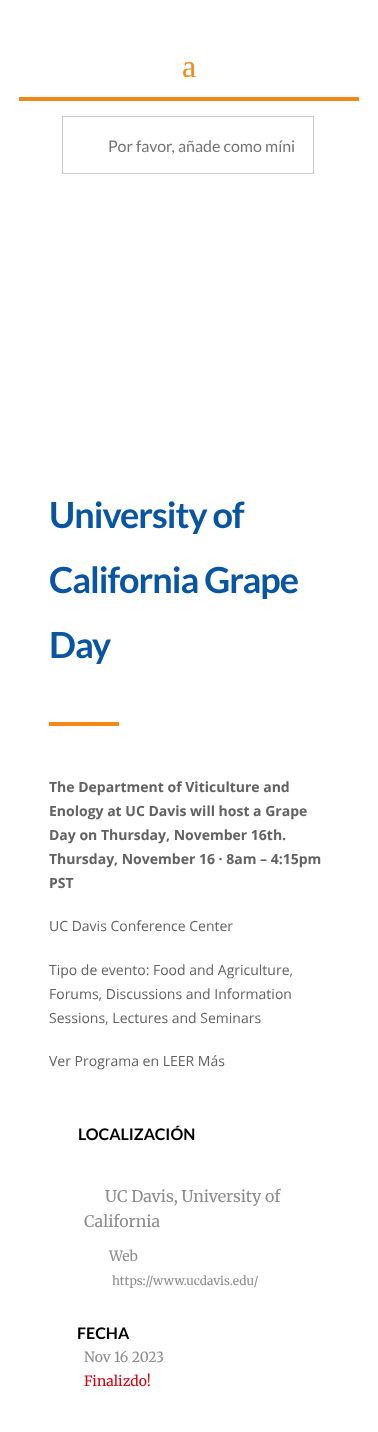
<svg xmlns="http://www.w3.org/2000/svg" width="378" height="1432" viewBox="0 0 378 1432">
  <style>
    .t1 { font: 32px Liberation Serif; fill: #f38919; }
    .t2 { font: 16px Lato; fill: #757575; }
    .t3 { font: bold 36px Lato; letter-spacing: -1px; fill: #0855a3; }
    .t4 { font: bold 14px Open Sans; fill: #626262; }
    .t5 { font: 14px Open Sans; fill: #626262; }
    .t6 { font: bold 16px Lato; fill: #000; }
    .t7 { font: 16px Merriweather; fill: #8d8d8d; }
    .t8 { font: 14px Merriweather; fill: #8d8d8d; }
    .t9 { font: 12px Merriweather; fill: #8d8d8d; }
    .t10 { font: 14px Merriweather; fill: #d8000c; }
  </style>
  <rect width="100%" height="100%" fill="#fff"/>
  <text x="182" y="77" class="t1">a</text>
  <rect x="19" y="97" width="340" height="4" fill="#f38919"/>
  <rect x="62.5" y="116.5" width="251" height="57" fill="none" stroke="#ccc"/>
  <text x="108" y="152" class="t2">Por favor, añade como míni</text>
  <text x="49" y="528" class="t3">University of</text>
  <text x="49" y="593" class="t3">California Grape</text>
  <text x="49" y="658" class="t3">Day</text>
  <rect x="49" y="722" width="70" height="4" fill="#f38919"/>
  <text x="49" y="792" class="t4">The Department of Viticulture and</text>
  <text x="49" y="816" class="t4">Enology at UC Davis will host a Grape</text>
  <text x="49" y="840" class="t4">Day on Thursday, November 16th.</text>
  <text x="49" y="864" class="t4">Thursday, November 16 · 8am – 4:15pm</text>
  <text x="49" y="888" class="t4">PST</text>
  <text x="49" y="931" class="t5">UC Davis Conference Center</text>
  <text x="49" y="975" class="t5">Tipo de evento: Food and Agriculture,</text>
  <text x="49" y="999" class="t5">Forums, Discussions and Information</text>
  <text x="49" y="1023" class="t5">Sessions, Lectures and Seminars</text>
  <text x="49" y="1066" class="t5">Ver Programa en LEER Más</text>
  <text x="78" y="1140" class="t6">LOCALIZACIÓN</text>
  <text x="105" y="1202" class="t7">UC Davis, University of</text>
  <text x="84" y="1227" class="t7">California</text>
  <text x="109" y="1261" class="t8">Web</text>
  <text x="112" y="1285" class="t9">https://www.ucdavis.edu/</text>
  <text x="77" y="1339" class="t6">FECHA</text>
  <text x="84" y="1362" class="t8">Nov 16 2023</text>
  <text x="84" y="1386" class="t10">Finalizdo!</text>
</svg>
